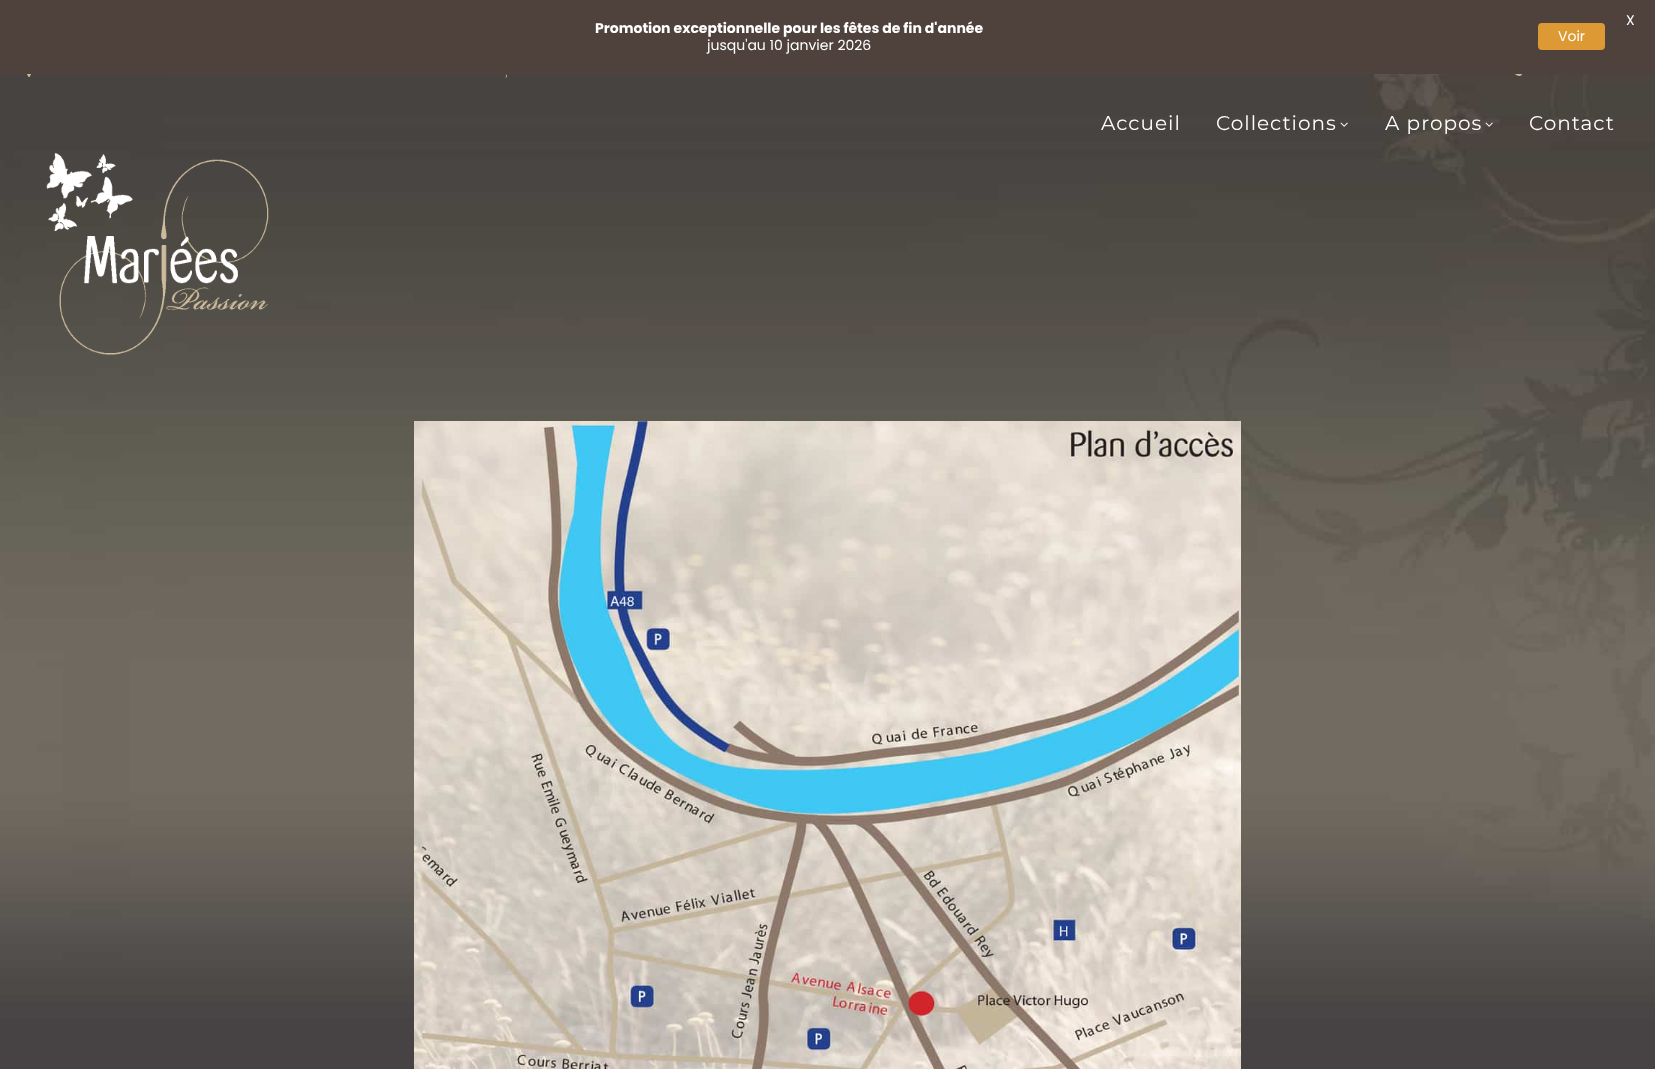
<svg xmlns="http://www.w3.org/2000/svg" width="1655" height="1069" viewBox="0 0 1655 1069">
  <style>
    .t1 { font: 14px Poppins; fill: #fff; }
    .t2 { font: bold 14px Poppins; fill: #fff; }
    .t3 { font: 300 14px Roboto; fill: #ccbb9c; }
    .t4 { font: 100 20px Montserrat; letter-spacing: 1px; fill: #fff; }
  </style>
  <rect width="100%" height="100%" fill="#fff"/>
  <image x="0" y="74" width="1655" height="995" href="images/1.png"/>
  <rect x="0" y="0" width="1655" height="74" fill="#4f423c"/>
  <text x="1626" y="25" class="t1">X</text>
  <text x="595" y="33" class="t2">Promotion exceptionnelle pour les fêtes de fin d'année</text>
  <text x="707" y="50" class="t1">jusqu'au 10 janvier 2026</text>
  <rect x="1538" y="23" width="67" height="27" rx="4" fill="#d93"/>
  <text x="1558" y="41" class="t1">Voir</text>
  <image x="27" y="74" width="4" height="3" href="images/2.png"/>
  <text x="505" y="76" class="t3">,</text>
  <image x="1515" y="74" width="7" height="2" href="images/3.png"/>
  <text x="1101" y="130" class="t4">Accueil</text>
  <text x="1216" y="130" class="t4">Collections</text>
  <image x="1340" y="122" width="8" height="5" href="images/4.png"/>
  <text x="1385" y="130" class="t4">A propos</text>
  <image x="1485" y="122" width="8" height="5" href="images/5.png"/>
  <text x="1529" y="130" class="t4">Contact</text>
  <image x="46" y="152" width="223" height="203" href="images/6.png"/>
  <image x="414" y="421" width="827" height="648" href="images/7.png"/>
</svg>
